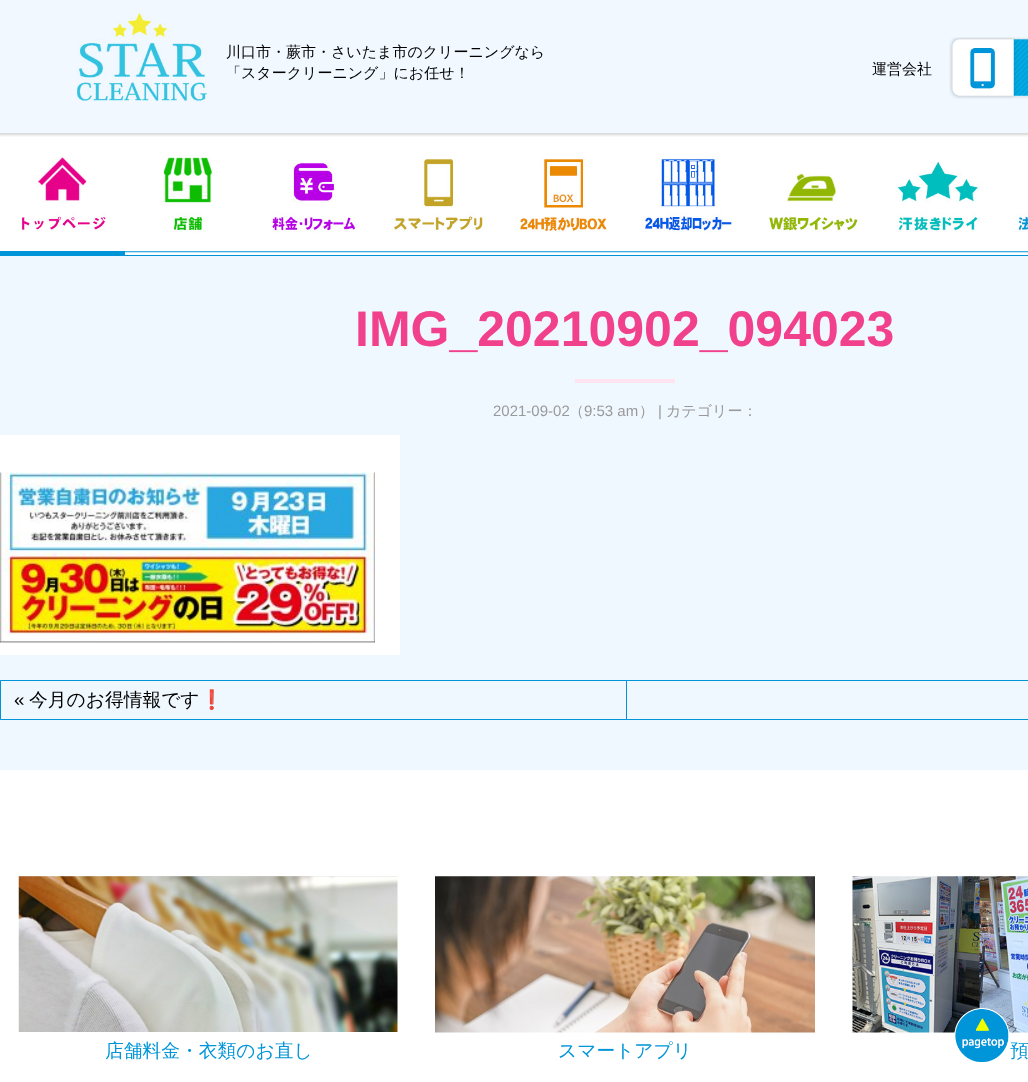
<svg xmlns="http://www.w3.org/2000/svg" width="1028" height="1082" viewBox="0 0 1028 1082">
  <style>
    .t1 { font: 500 15px WenQuanYi Zen Hei; fill: #000; }
    .t2 { font: bold 50px Liberation Sans; fill: #f1418c; }
    .t3 { font: 15px Liberation Sans; fill: #999; }
    .t4 { font: 500 15px WenQuanYi Zen Hei; fill: #999; }
    .t5 { font: 18.75px Liberation Sans; fill: #000; }
    .t6 { font: 500 18.75px WenQuanYi Zen Hei; fill: #000; }
    .t7 { font: 18.75px Noto Color Emoji; fill: #000; }
    .t8 { font: 500 18.75px WenQuanYi Zen Hei; fill: #0095d9; }
  </style>
  <rect width="100%" height="100%" fill="#fff"/>
  <image x="0" y="0" width="1028" height="137" href="images/1.png"/>
  <image x="76" y="13" width="133" height="88" href="images/2.png"/>
  <text x="226" y="57" class="t1">川口市・蕨市・さいたま市のクリーニングなら</text>
  <text x="226" y="78" class="t1">「スタークリーニング」にお任せ！</text>
  <text x="872" y="74" class="t1">運営会社</text>
  <image x="949" y="37" width="79" height="62" href="images/3.png"/>
  <image x="125" y="251" width="903" height="5" href="images/4.png"/>
  <rect x="0" y="251" width="125" height="5" fill="#0095d9"/>
  <image x="21" y="157" width="85" height="76" href="images/5.png"/>
  <image x="161" y="157" width="54" height="76" href="images/6.png"/>
  <image x="271" y="163" width="85" height="70" href="images/7.png"/>
  <image x="391" y="157" width="92" height="76" href="images/8.png"/>
  <image x="516" y="157" width="92" height="76" href="images/9.png"/>
  <image x="642" y="157" width="90" height="76" href="images/10.png"/>
  <image x="767" y="173" width="93" height="60" href="images/11.png"/>
  <image x="896" y="159" width="85" height="74" href="images/12.png"/>
  <image x="1016" y="213" width="12" height="20" href="images/13.png"/>
  <rect x="0" y="256" width="1028" height="514" fill="#f0f8ff"/>
  <text x="355" y="346" class="t2">IMG_20210902_094023</text>
  <rect x="575" y="379" width="100" height="4" fill="#ffe3ef"/>
  <text x="493" y="416" class="t3">2021-09-02</text>
  <text x="569" y="416" class="t4">（</text>
  <text x="584" y="416" class="t3">9:53 am</text>
  <text x="639" y="416" class="t4">）</text>
  <text x="658" y="416" class="t3">|</text>
  <text x="666" y="416" class="t4">カテゴリー：</text>
  <rect x="0" y="435" width="400" height="220" fill="#fff"/>
  <image x="0" y="472" width="375" height="171" href="images/14.png"/>
  <rect x="0.5" y="680.5" width="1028" height="39" fill="none" stroke="#0095d9"/>
  <text x="14" y="706" class="t5">«</text>
  <text x="29" y="706" class="t6">今月のお得情報です</text>
  <text x="200" y="706" class="t7">❗</text>
  <rect x="626" y="681" width="1" height="38" fill="#0095d9"/>
  <image x="852" y="876" width="176" height="157" href="images/18.png"/>
  <image x="954" y="1008" width="56" height="54" href="images/15.png"/>
  <image x="18" y="876" width="380" height="157" href="images/16.png"/>
  <text x="105" y="1057" class="t8">店舗料金・衣類のお直し</text>
  <image x="435" y="876" width="380" height="157" href="images/17.png"/>
  <text x="558" y="1057" class="t8">スマートアプリ</text>
  <text x="1010" y="1057" class="t8">預</text>
</svg>
